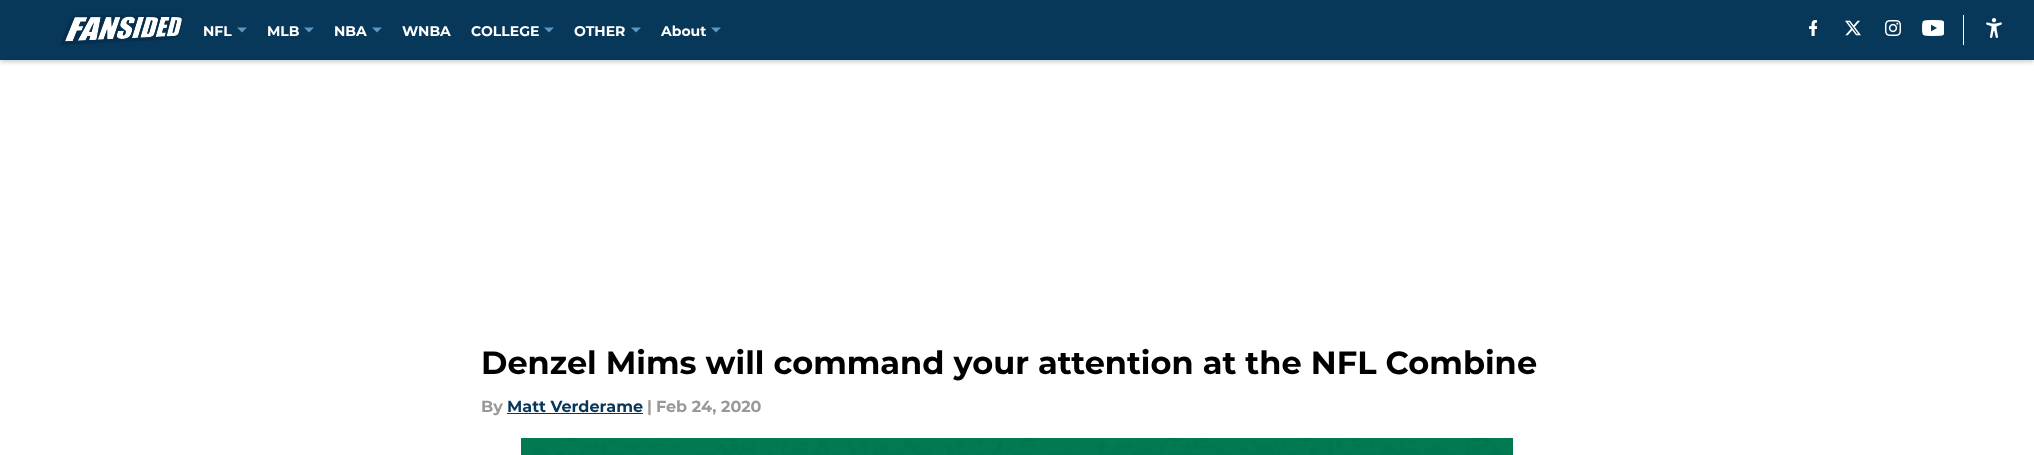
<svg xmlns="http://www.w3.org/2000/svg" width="2034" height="455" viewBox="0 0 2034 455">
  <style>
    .t1 { font: bold 14px Montserrat; fill: #fff; }
    .t2 { font: bold 32px Montserrat; fill: #000; }
    .t3 { font: bold 16px Montserrat; fill: #999; }
    .t4 { font: bold 16px Montserrat; fill: #073759; }
  </style>
  <rect width="100%" height="100%" fill="#fff"/>
  <rect x="0" y="2" width="2034" height="60" fill="#00000033" filter="blur(2px)"/>
  <rect x="0" y="0" width="2034" height="60" fill="#073759"/>
  <image x="60" y="15" width="123" height="30" href="images/1.png"/>
  <text x="203" y="36" class="t1">NFL</text>
  <path d="M237 27.5L242 32.5L247 27.5Z" fill="#5a97c1" fill-rule="evenodd"/>
  <text x="267" y="36" class="t1">MLB</text>
  <path d="M304 27.5L309 32.5L314 27.5Z" fill="#5a97c1" fill-rule="evenodd"/>
  <text x="334" y="36" class="t1">NBA</text>
  <path d="M372 27.5L377 32.5L382 27.5Z" fill="#5a97c1" fill-rule="evenodd"/>
  <text x="402" y="36" class="t1">WNBA</text>
  <text x="471" y="36" class="t1">COLLEGE</text>
  <path d="M544 27.5L549 32.5L554 27.5Z" fill="#5a97c1" fill-rule="evenodd"/>
  <text x="574" y="36" class="t1">OTHER</text>
  <path d="M631 27.5L636 32.5L641 27.5Z" fill="#5a97c1" fill-rule="evenodd"/>
  <text x="661" y="36" class="t1">About</text>
  <path d="M711 27.5L716 32.5L721 27.5Z" fill="#5a97c1" fill-rule="evenodd"/>
  <image x="1809" y="20" width="8" height="16" href="images/2.png"/>
  <image x="1845" y="20" width="16" height="16" href="images/3.png"/>
  <image x="1885" y="20" width="16" height="16" href="images/4.png"/>
  <image x="1922" y="20" width="22" height="16" href="images/5.png"/>
  <rect x="1963" y="15" width="1" height="30" fill="#fff"/>
  <image x="1986" y="18" width="16" height="20" href="images/6.png"/>
  <text x="481" y="374" class="t2">Denzel Mims will command your attention at the NFL Combine</text>
  <text x="481" y="412" class="t3">By</text>
  <text x="507" y="412" class="t4">Matt Verderame</text>
  <rect x="507" y="413" width="136" height="1" fill="#073759"/>
  <text x="647" y="412" class="t3">|</text>
  <text x="656" y="412" class="t3">Feb 24, 2020</text>
  <image x="521" y="438" width="992" height="17" href="images/7.png"/>
</svg>
